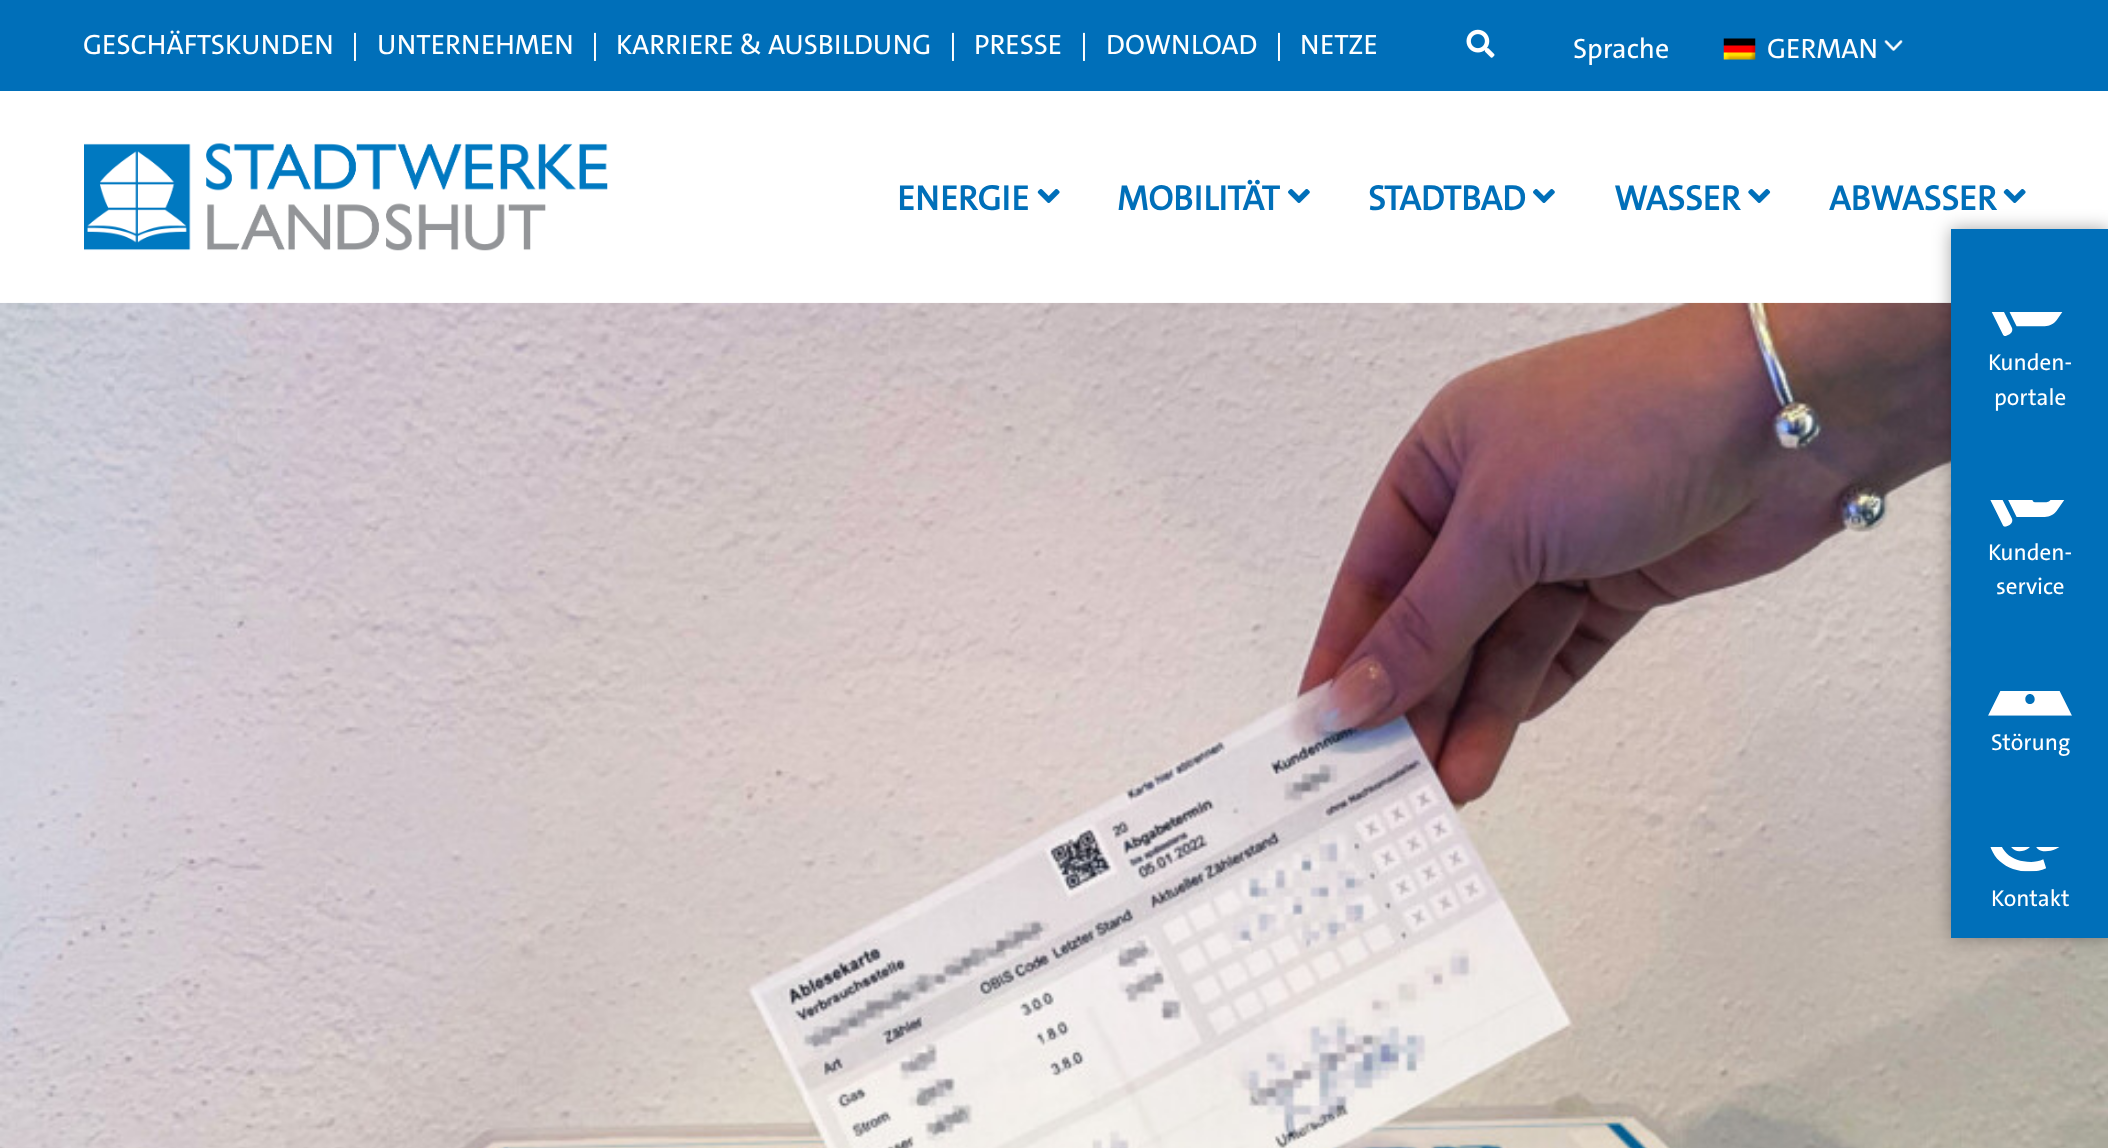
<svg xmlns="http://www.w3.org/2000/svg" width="2108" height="1148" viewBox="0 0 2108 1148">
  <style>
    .t1 { font: 500 28px 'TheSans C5'; fill: #fff; }
    .t2 { font: bold 35px 'TheSans C5'; fill: #006fb9; }
    .t3 { font: 500 23px 'TheSans C5'; fill: #fff; }
  </style>
  <rect width="100%" height="100%" fill="#fff"/>
  <rect x="0" y="0" width="2108" height="91" fill="#006fb9"/>
  <text x="83" y="54" class="t1">GESCHÄFTSKUNDEN</text>
  <text x="351" y="54" class="t1">|</text>
  <text x="377" y="54" class="t1">UNTERNEHMEN</text>
  <text x="591" y="54" class="t1">|</text>
  <text x="616" y="54" class="t1">KARRIERE &amp; AUSBILDUNG</text>
  <text x="949" y="54" class="t1">|</text>
  <text x="974" y="54" class="t1">PRESSE</text>
  <text x="1080" y="54" class="t1">|</text>
  <text x="1106" y="54" class="t1">DOWNLOAD</text>
  <text x="1275" y="54" class="t1">|</text>
  <text x="1300" y="54" class="t1">NETZE</text>
  <image x="1466" y="29" width="29" height="29" href="images/1.png"/>
  <text x="1573" y="58" class="t1">Sprache</text>
  <image x="1884" y="40" width="19" height="11" href="images/2.png"/>
  <image x="1723" y="38" width="33" height="22" href="images/3.png"/>
  <text x="1767" y="58" class="t1">GERMAN</text>
  <image x="84" y="143" width="524" height="108" href="images/4.png"/>
  <text x="897" y="210" class="t2">ENERGIE</text>
  <image x="1037" y="189" width="23" height="14" href="images/5.png"/>
  <text x="1117" y="210" class="t2">MOBILITÄT</text>
  <image x="1288" y="189" width="22" height="14" href="images/6.png"/>
  <text x="1368" y="210" class="t2">STADTBAD</text>
  <image x="1533" y="189" width="22" height="14" href="images/6.png"/>
  <text x="1614" y="210" class="t2">WASSER</text>
  <image x="1748" y="189" width="23" height="14" href="images/7.png"/>
  <text x="1829" y="210" class="t2">ABWASSER</text>
  <image x="2003" y="189" width="23" height="14" href="images/5.png"/>
  <image x="0" y="302" width="2108" height="846" href="images/8.png"/>
  <rect x="1951" y="229" width="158" height="709" fill="#00000059" filter="blur(9px)"/>
  <rect x="1951" y="229" width="157" height="709" fill="#006fb9"/>
  <image x="1991" y="312" width="72" height="24" href="images/9.png"/>
  <text x="1988" y="370" class="t3">Kunden-</text>
  <text x="1994" y="405" class="t3">portale</text>
  <image x="1990" y="500" width="75" height="27" href="images/10.png"/>
  <text x="1988" y="560" class="t3">Kunden-</text>
  <text x="1996" y="594" class="t3">service</text>
  <image x="1988" y="691" width="84" height="25" href="images/11.png"/>
  <text x="1991" y="750" class="t3">Störung</text>
  <image x="1990" y="847" width="70" height="25" href="images/12.png"/>
  <text x="1991" y="906" class="t3">Kontakt</text>
</svg>
